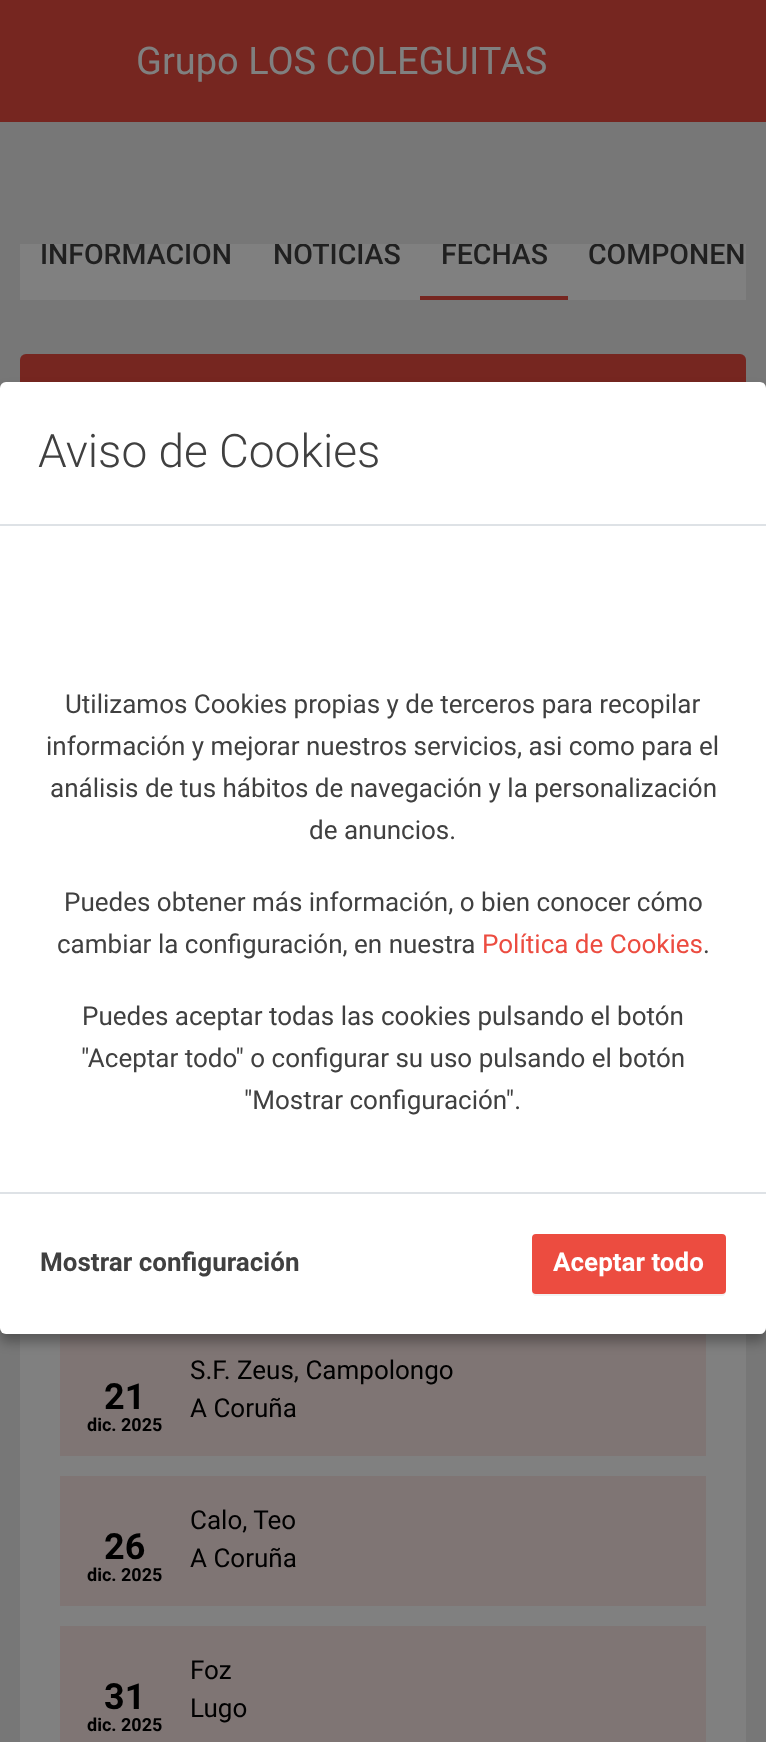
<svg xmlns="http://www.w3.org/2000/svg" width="766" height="1742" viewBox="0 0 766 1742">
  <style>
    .t1 { font: 38px Roboto; fill: #808080; }
    .t2 { font: 500 28.5px Roboto; fill: #202020; }
    .t3 { font: bold 36px Roboto; fill: #000; }
    .t4 { font: bold 18px Roboto; fill: #000; }
    .t5 { font: 26px Roboto; fill: #000; }
    .t6 { font: 300 46px Roboto; fill: #404040; }
    .t7 { font: 26px Roboto; fill: #404040; }
    .t8 { font: 26px Roboto; fill: #ec4c40; }
    .t9 { font: bold 26px Roboto; fill: #404040; }
    .t10 { font: bold 26px Roboto; fill: #fff; }
  </style>
  <rect width="100%" height="100%" fill="#777"/>
  <rect x="0" y="0" width="766" height="122" fill="#762620"/>
  <text x="136" y="74" class="t1">Grupo LOS COLEGUITAS</text>
  <rect x="20" y="244" width="726" height="56" fill="#808080"/>
  <text x="40" y="264" class="t2">INFORMACIÓN</text>
  <text x="273" y="264" class="t2">NOTICIAS</text>
  <text x="441" y="264" class="t2">FECHAS</text>
  <text x="588" y="264" class="t2">COMPONEN</text>
  <rect x="42" y="238" width="703" height="6" fill="#777"/>
  <rect x="420" y="296" width="148" height="4" fill="#762620"/>
  <rect x="20" y="354" width="726" height="172" rx="6" fill="#762620"/>
  <rect x="20" y="1334" width="726" height="408" fill="#808080"/>
  <rect x="60" y="1334" width="646" height="122" fill="#7f7574"/>
  <text x="104" y="1409" class="t3">21</text>
  <text x="87" y="1431" class="t4">dic. 2025</text>
  <text x="190" y="1379" class="t5">S.F. Zeus, Campolongo</text>
  <text x="190" y="1417" class="t5">A Coruña</text>
  <rect x="60" y="1476" width="646" height="130" fill="#7f7574"/>
  <text x="104" y="1559" class="t3">26</text>
  <text x="87" y="1581" class="t4">dic. 2025</text>
  <text x="190" y="1529" class="t5">Calo, Teo</text>
  <text x="190" y="1567" class="t5">A Coruña</text>
  <rect x="60" y="1626" width="646" height="116" fill="#7f7574"/>
  <text x="104" y="1709" class="t3">31</text>
  <text x="87" y="1731" class="t4">dic. 2025</text>
  <text x="190" y="1679" class="t5">Foz</text>
  <text x="190" y="1717" class="t5">Lugo</text>
  <rect x="0" y="390" width="766" height="952" rx="6" fill="#0000004d" filter="blur(6px)"/>
  <rect x="0" y="382" width="766" height="952" rx="6" fill="#fff"/>
  <rect x="0" y="524" width="766" height="2" fill="#dee2e6"/>
  <text x="38" y="467" class="t6">Aviso de Cookies</text>
  <text x="65" y="713" class="t7">Utilizamos Cookies propias y de terceros para recopilar</text>
  <text x="46" y="755" class="t7">información y mejorar nuestros servicios, asi como para el</text>
  <text x="50" y="797" class="t7">análisis de tus hábitos de navegación y la personalización</text>
  <text x="309" y="839" class="t7">de anuncios.</text>
  <text x="64" y="911" class="t7">Puedes obtener más información, o bien conocer cómo</text>
  <text x="57" y="953" class="t7">cambiar la configuración, en nuestra</text>
  <text x="482" y="953" class="t8">Política de Cookies</text>
  <text x="703" y="953" class="t7">.</text>
  <text x="82" y="1025" class="t7">Puedes aceptar todas las cookies pulsando el botón</text>
  <text x="81" y="1067" class="t7">"Aceptar todo" o configurar su uso pulsando el botón</text>
  <text x="244" y="1109" class="t7">"Mostrar configuración".</text>
  <rect x="0" y="1192" width="766" height="2" fill="#dee2e6"/>
  <text x="40" y="1271" class="t9">Mostrar configuración</text>
  <path d="M532 1290V1292C532 1294 534 1296 536 1296H722C724 1296 726 1294 726 1292V1290C726 1292 724 1294 722 1294H536C534 1294 532 1292 532 1290Z" fill="#f2f2f2"/>
  <rect x="533" y="1235" width="192" height="58" rx="3" fill="#ec4c40" stroke="#ec4c40" stroke-width="2"/>
  <text x="553" y="1271" class="t10">Aceptar todo</text>
</svg>
